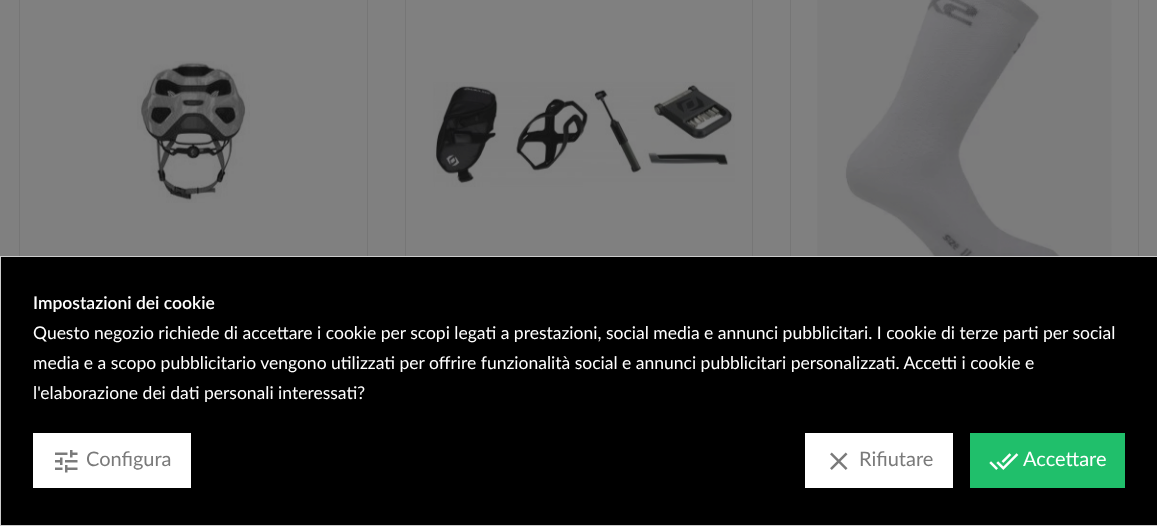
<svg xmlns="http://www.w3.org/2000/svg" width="1157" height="526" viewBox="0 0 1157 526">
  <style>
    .t1 { font: 600 17.5px Lato; fill: #fff; }
    .t2 { font: 17.5px Lato; fill: #fff; }
    .t3 { font: 20px Lato; fill: #7a7a7a; }
    .t4 { font: 20px Lato; fill: #fff; }
  </style>
  <rect width="100%" height="100%" fill="#808080"/>
  <rect x="19.5" y="-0.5" width="348" height="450" fill="none" stroke="#767676"/>
  <image x="137" y="61" width="113" height="142" href="images/1.png"/>
  <rect x="405.5" y="-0.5" width="347" height="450" fill="none" stroke="#767676"/>
  <image x="433" y="82" width="302" height="105" href="images/2.png"/>
  <rect x="790.5" y="-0.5" width="348" height="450" fill="none" stroke="#767676"/>
  <image x="817" y="0" width="295" height="256" href="images/3.png"/>
  <rect x="0.5" y="256.5" width="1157" height="269" fill="#000" stroke="#ccc"/>
  <text x="33" y="309" class="t1">Impostazioni dei cookie</text>
  <text x="33" y="339" class="t2">Questo negozio richiede di accettare i cookie per scopi legati a prestazioni, social media e annunci pubblicitari. I cookie di terze parti per social</text>
  <text x="33" y="369" class="t2">media e a scopo pubblicitario vengono utilizzati per offrire funzionalità social e annunci pubblicitari personalizzati. Accetti i cookie e</text>
  <text x="33" y="399" class="t2">l'elaborazione dei dati personali interessati?</text>
  <rect x="33" y="433" width="158" height="55" fill="#fff"/>
  <image x="55" y="450" width="23" height="23" href="images/4.png"/>
  <text x="86" y="466" class="t3">Configura</text>
  <rect x="805" y="433" width="148" height="55" fill="#fff"/>
  <image x="830" y="452" width="18" height="18" href="images/5.png"/>
  <text x="859" y="466" class="t3">Rifiutare</text>
  <rect x="970" y="433" width="155" height="55" fill="#20bf6b"/>
  <image x="989" y="453" width="30" height="17" href="images/6.png"/>
  <text x="1023" y="466" class="t4">Accettare</text>
</svg>
